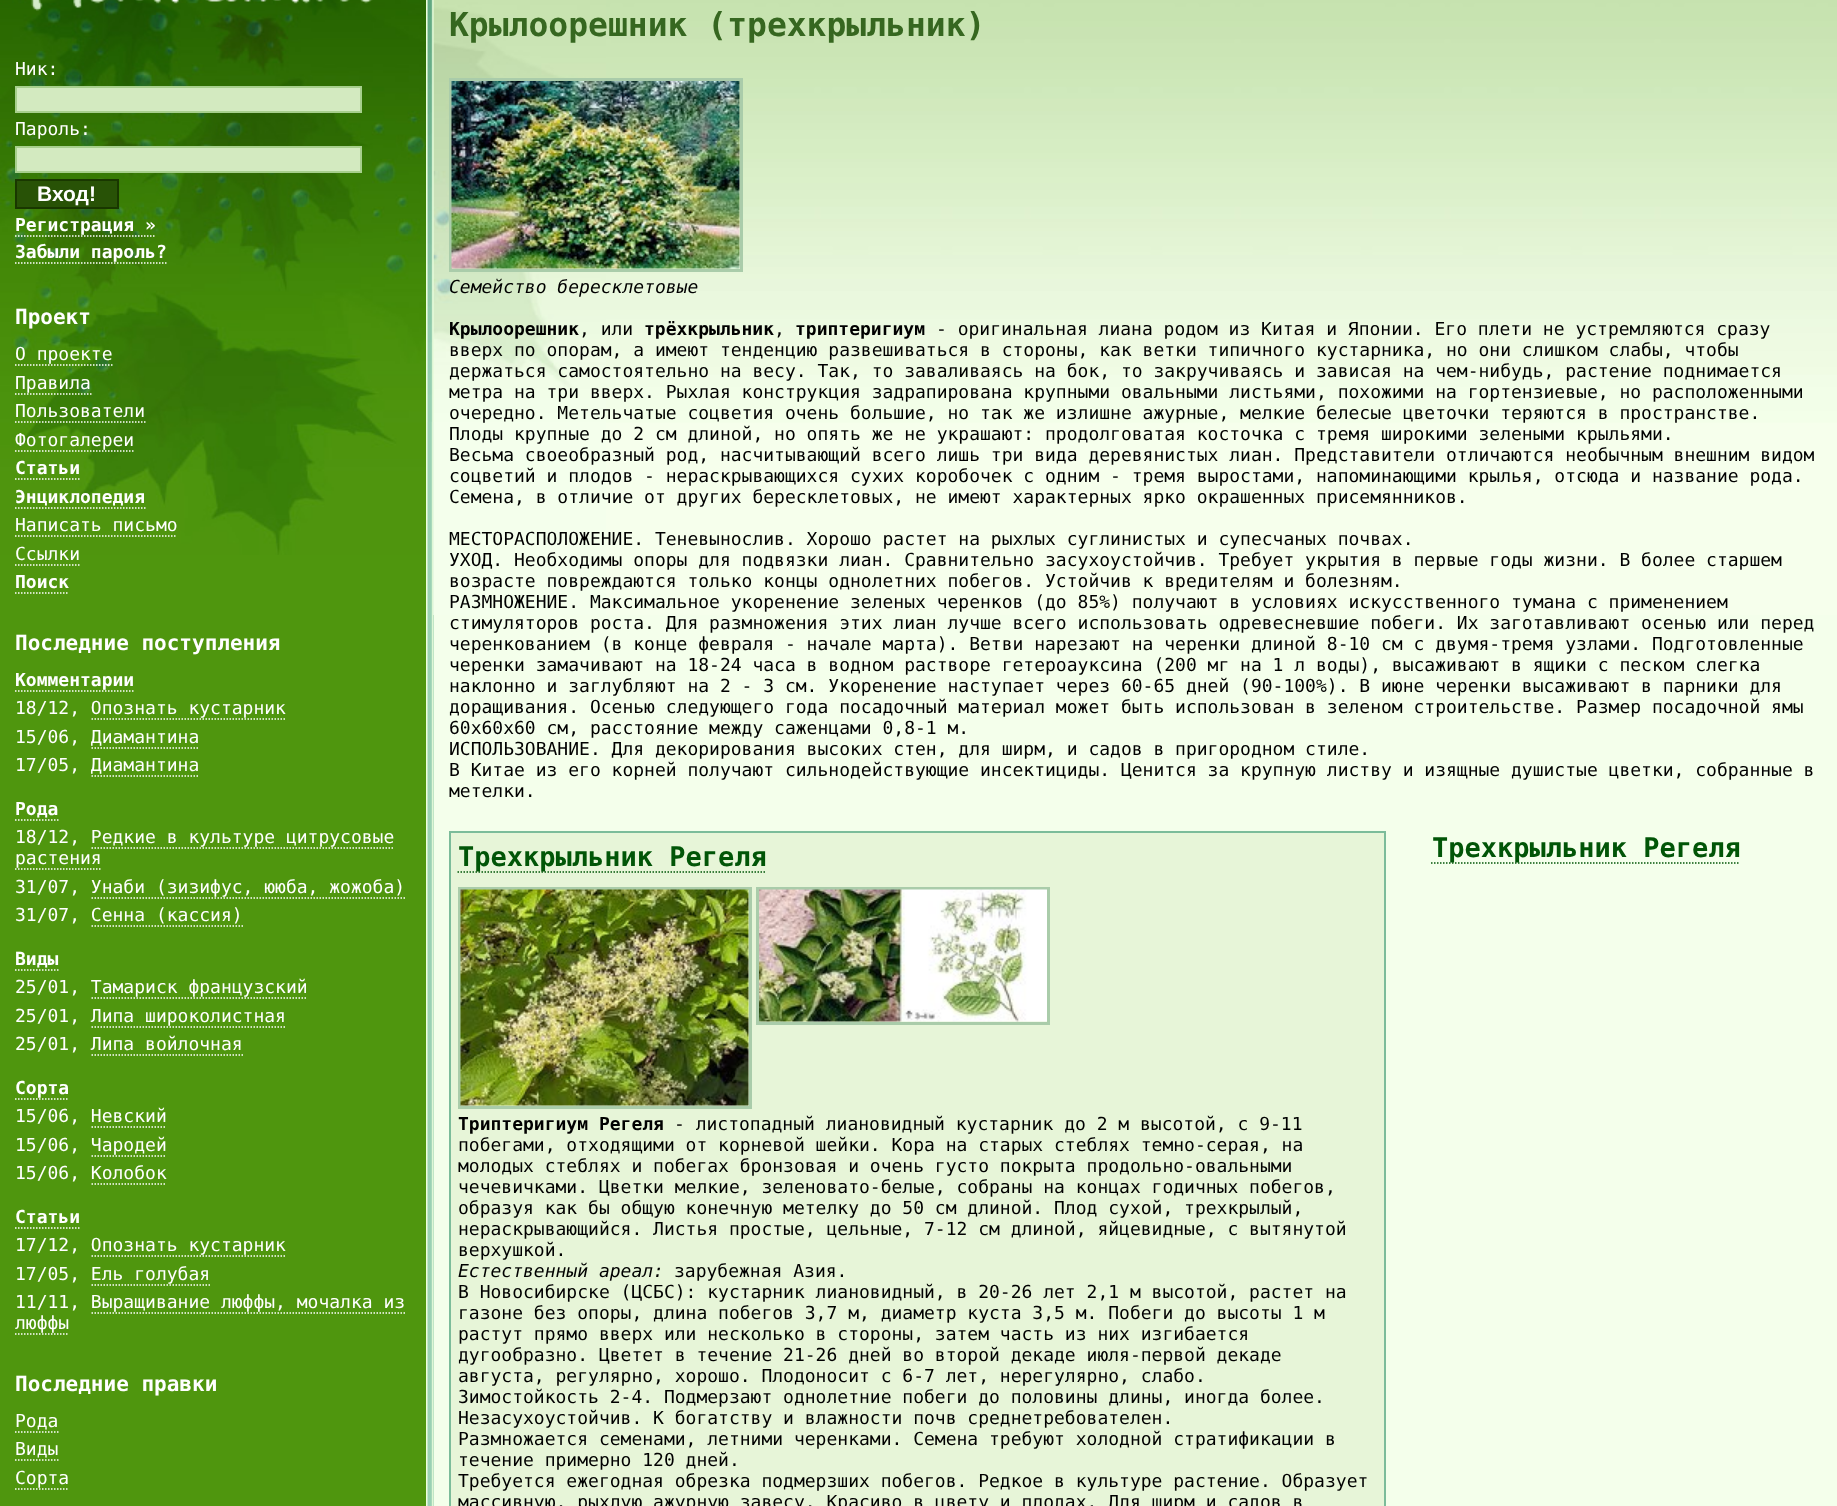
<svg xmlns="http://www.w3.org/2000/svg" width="1837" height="1506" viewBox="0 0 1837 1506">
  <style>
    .t1 { font: 18px DejaVu Sans Mono; fill: #fff; }
    .t2 { font: bold 21px Liberation Sans; fill: #fff; }
    .t3 { font: bold 18px DejaVu Sans Mono; fill: #fff; }
    .t4 { font: bold 21px DejaVu Sans Mono; fill: #fff; }
    .t5 { font: bold 33px DejaVu Sans Mono; fill: #366720; }
    .t6 { font: italic 18px DejaVu Sans Mono; fill: #000; }
    .t7 { font: bold 18px DejaVu Sans Mono; fill: #000; }
    .t8 { font: 18px DejaVu Sans Mono; fill: #000; }
    .t9 { font: bold 27px DejaVu Sans Mono; fill: #015507; }
  </style>
  <rect width="100%" height="100%" fill="#f4ffeb"/>
  <rect x="0" y="555" width="426" height="951" fill="#4f960e"/>
  <image x="0" y="0" width="426" height="555" href="images/1.png"/>
  <image x="31" y="0" width="342" height="11" href="images/2.png"/>
  <text x="15" y="75" class="t1">Ник:</text>
  <rect x="16" y="87" width="345" height="25" fill="#d3eac0" stroke="#a7cf8d" stroke-width="2"/>
  <text x="15" y="135" class="t1">Пароль:</text>
  <rect x="16" y="147" width="345" height="25" fill="#d3eac0" stroke="#a7cf8d" stroke-width="2"/>
  <rect x="16" y="180" width="102" height="28" fill="#285206" stroke="#193700" stroke-width="2"/>
  <text x="37" y="201" class="t2">Вход!</text>
  <text x="15" y="231" class="t3">Регистрация »</text>
  <path d="M15 236H156" fill="none" stroke="#fff" stroke-width="1.5" stroke-dasharray="1.5 1.5"/>
  <text x="15" y="258" class="t3">Забыли пароль?</text>
  <path d="M15 263H166.5" fill="none" stroke="#fff" stroke-width="1.5" stroke-dasharray="1.5 1.5"/>
  <text x="15" y="324" class="t4">Проект</text>
  <text x="15" y="360" class="t1">О проекте</text>
  <path d="M15 365H112.5" fill="none" stroke="#fff" stroke-width="1.5" stroke-dasharray="1.5 1.5"/>
  <text x="15" y="389" class="t1">Правила</text>
  <path d="M15 394H91.5" fill="none" stroke="#fff" stroke-width="1.5" stroke-dasharray="1.5 1.5"/>
  <text x="15" y="417" class="t1">Пользователи</text>
  <path d="M15 422H145.5" fill="none" stroke="#fff" stroke-width="1.5" stroke-dasharray="1.5 1.5"/>
  <text x="15" y="446" class="t1">Фотогалереи</text>
  <path d="M15 451H133.5" fill="none" stroke="#fff" stroke-width="1.5" stroke-dasharray="1.5 1.5"/>
  <text x="15" y="474" class="t3">Статьи</text>
  <path d="M15 479H79.5" fill="none" stroke="#fff" stroke-width="1.5" stroke-dasharray="1.5 1.5"/>
  <text x="15" y="503" class="t3">Энциклопедия</text>
  <path d="M15 508H145.5" fill="none" stroke="#fff" stroke-width="1.5" stroke-dasharray="1.5 1.5"/>
  <text x="15" y="531" class="t1">Написать письмо</text>
  <path d="M15 536H177" fill="none" stroke="#fff" stroke-width="1.5" stroke-dasharray="1.5 1.5"/>
  <text x="15" y="560" class="t1">Ссылки</text>
  <path d="M15 565H79.5" fill="none" stroke="#fff" stroke-width="1.5" stroke-dasharray="1.5 1.5"/>
  <text x="15" y="588" class="t3">Поиск</text>
  <path d="M15 593H69" fill="none" stroke="#fff" stroke-width="1.5" stroke-dasharray="1.5 1.5"/>
  <text x="15" y="650" class="t4">Последние поступления</text>
  <text x="15" y="686" class="t3">Комментарии</text>
  <path d="M15 691H133.5" fill="none" stroke="#fff" stroke-width="1.5" stroke-dasharray="1.5 1.5"/>
  <text x="15" y="714" class="t1">18/12, Опознать кустарник</text>
  <path d="M91.5 719H286.5" fill="none" stroke="#fff" stroke-width="1.5" stroke-dasharray="1.5 1.5"/>
  <text x="15" y="743" class="t1">15/06, Диамантина</text>
  <path d="M91.5 748H199.5" fill="none" stroke="#fff" stroke-width="1.5" stroke-dasharray="1.5 1.5"/>
  <text x="15" y="771" class="t1">17/05, Диамантина</text>
  <path d="M91.5 776H199.5" fill="none" stroke="#fff" stroke-width="1.5" stroke-dasharray="1.5 1.5"/>
  <text x="15" y="815" class="t3">Рода</text>
  <path d="M15 820H58.5" fill="none" stroke="#fff" stroke-width="1.5" stroke-dasharray="1.5 1.5"/>
  <text x="15" y="843" class="t1">18/12, Редкие в культуре цитрусовые</text>
  <text x="15" y="864" class="t1">растения</text>
  <path d="M91.5 848H394.5" fill="none" stroke="#fff" stroke-width="1.5" stroke-dasharray="1.5 1.5"/>
  <path d="M15 869H102" fill="none" stroke="#fff" stroke-width="1.5" stroke-dasharray="1.5 1.5"/>
  <text x="15" y="893" class="t1">31/07, Унаби (зизифус, ююба, жожоба)</text>
  <path d="M91.5 898H405" fill="none" stroke="#fff" stroke-width="1.5" stroke-dasharray="1.5 1.5"/>
  <text x="15" y="921" class="t1">31/07, Сенна (кассия)</text>
  <path d="M91.5 926H243" fill="none" stroke="#fff" stroke-width="1.5" stroke-dasharray="1.5 1.5"/>
  <text x="15" y="965" class="t3">Виды</text>
  <path d="M15 970H58.5" fill="none" stroke="#fff" stroke-width="1.5" stroke-dasharray="1.5 1.5"/>
  <text x="15" y="993" class="t1">25/01, Тамариск французский</text>
  <path d="M91.5 998H307.5" fill="none" stroke="#fff" stroke-width="1.5" stroke-dasharray="1.5 1.5"/>
  <text x="15" y="1022" class="t1">25/01, Липа широколистная</text>
  <path d="M91.5 1027H286.5" fill="none" stroke="#fff" stroke-width="1.5" stroke-dasharray="1.5 1.5"/>
  <text x="15" y="1050" class="t1">25/01, Липа войлочная</text>
  <path d="M91.5 1055H243" fill="none" stroke="#fff" stroke-width="1.5" stroke-dasharray="1.5 1.5"/>
  <text x="15" y="1094" class="t3">Сорта</text>
  <path d="M15 1099H69" fill="none" stroke="#fff" stroke-width="1.5" stroke-dasharray="1.5 1.5"/>
  <text x="15" y="1122" class="t1">15/06, Невский</text>
  <path d="M91.5 1127H166.5" fill="none" stroke="#fff" stroke-width="1.5" stroke-dasharray="1.5 1.5"/>
  <text x="15" y="1151" class="t1">15/06, Чародей</text>
  <path d="M91.5 1156H166.5" fill="none" stroke="#fff" stroke-width="1.5" stroke-dasharray="1.5 1.5"/>
  <text x="15" y="1179" class="t1">15/06, Колобок</text>
  <path d="M91.5 1184H166.5" fill="none" stroke="#fff" stroke-width="1.5" stroke-dasharray="1.5 1.5"/>
  <text x="15" y="1223" class="t3">Статьи</text>
  <path d="M15 1228H79.5" fill="none" stroke="#fff" stroke-width="1.5" stroke-dasharray="1.5 1.5"/>
  <text x="15" y="1251" class="t1">17/12, Опознать кустарник</text>
  <path d="M91.5 1256H286.5" fill="none" stroke="#fff" stroke-width="1.5" stroke-dasharray="1.5 1.5"/>
  <text x="15" y="1280" class="t1">17/05, Ель голубая</text>
  <path d="M91.5 1285H210" fill="none" stroke="#fff" stroke-width="1.5" stroke-dasharray="1.5 1.5"/>
  <text x="15" y="1308" class="t1">11/11, Выращивание люффы, мочалка из</text>
  <text x="15" y="1329" class="t1">люффы</text>
  <path d="M91.5 1313H405" fill="none" stroke="#fff" stroke-width="1.5" stroke-dasharray="1.5 1.5"/>
  <path d="M15 1334H69" fill="none" stroke="#fff" stroke-width="1.5" stroke-dasharray="1.5 1.5"/>
  <text x="15" y="1391" class="t4">Последние правки</text>
  <text x="15" y="1427" class="t1">Рода</text>
  <path d="M15 1432H58.5" fill="none" stroke="#fff" stroke-width="1.5" stroke-dasharray="1.5 1.5"/>
  <text x="15" y="1455" class="t1">Виды</text>
  <path d="M15 1460H58.5" fill="none" stroke="#fff" stroke-width="1.5" stroke-dasharray="1.5 1.5"/>
  <text x="15" y="1484" class="t1">Сорта</text>
  <path d="M15 1489H69" fill="none" stroke="#fff" stroke-width="1.5" stroke-dasharray="1.5 1.5"/>
  <rect x="433" y="0" width="1" height="1506" fill="#94cdaf"/>
  <image x="426" y="0" width="8" height="1506" href="images/3.png"/>
  <image x="433" y="0" width="1404" height="615" href="images/5.png"/>
  <image x="433" y="0" width="173" height="615" href="images/6.png"/>
  <image x="427" y="0" width="7" height="422" href="images/4.png"/>
  <text x="449" y="36" class="t5">Крылоорешник (трехкрыльник)</text>
  <rect x="450.5" y="79.5" width="291" height="191" fill="none" stroke="#aca" stroke-width="3"/>
  <image x="451" y="81" width="289" height="188" href="images/7.png"/>
  <text x="449" y="293" class="t6">Семейство бересклетовые</text>
  <text x="449" y="335" class="t7">Крылоорешник</text>
  <text x="579" y="335" class="t8">, или</text>
  <text x="644" y="335" class="t7">трёхкрыльник</text>
  <text x="774" y="335" class="t8">,</text>
  <text x="795" y="335" class="t7">триптеригиум</text>
  <text x="936" y="335" class="t8">- оригинальная лиана родом из Китая и Японии. Его плети не устремляются сразу</text>
  <text x="449" y="356" class="t8">вверх по опорам, а имеют тенденцию развешиваться в стороны, как ветки типичного кустарника, но они слишком слабы, чтобы</text>
  <text x="449" y="377" class="t8">держаться самостоятельно на весу. Так, то заваливаясь на бок, то закручиваясь и зависая на чем-нибудь, растение поднимается</text>
  <text x="449" y="398" class="t8">метра на три вверх. Рыхлая конструкция задрапирована крупными овальными листьями, похожими на гортензиевые, но расположенными</text>
  <text x="449" y="419" class="t8">очередно. Метельчатые соцветия очень большие, но так же излишне ажурные, мелкие белесые цветочки теряются в пространстве.</text>
  <text x="449" y="440" class="t8">Плоды крупные до 2 см длиной, но опять же не украшают: продолговатая косточка с тремя широкими зелеными крыльями.</text>
  <text x="449" y="461" class="t8">Весьма своеобразный род, насчитывающий всего лишь три вида деревянистых лиан. Представители отличаются необычным внешним видом</text>
  <text x="449" y="482" class="t8">соцветий и плодов - нераскрывающихся сухих коробочек с одним - тремя выростами, напоминающими крылья, отсюда и название рода.</text>
  <text x="449" y="503" class="t8">Семена, в отличие от других бересклетовых, не имеют характерных ярко окрашенных присемянников.</text>
  <text x="449" y="545" class="t8">МЕСТОРАСПОЛОЖЕНИЕ. Теневынослив. Хорошо растет на рыхлых суглинистых и супесчаных почвах.</text>
  <text x="449" y="566" class="t8">УХОД. Необходимы опоры для подвязки лиан. Сравнительно засухоустойчив. Требует укрытия в первые годы жизни. В более старшем</text>
  <text x="449" y="587" class="t8">возрасте повреждаются только концы однолетних побегов. Устойчив к вредителям и болезням.</text>
  <text x="449" y="608" class="t8">РАЗМНОЖЕНИЕ. Максимальное укоренение зеленых черенков (до 85%) получают в условиях искусственного тумана с применением</text>
  <text x="449" y="629" class="t8">стимуляторов роста. Для размножения этих лиан лучше всего использовать одревесневшие побеги. Их заготавливают осенью или перед</text>
  <text x="449" y="650" class="t8">черенкованием (в конце февраля - начале марта). Ветви нарезают на черенки длиной 8-10 см с двумя-тремя узлами. Подготовленные</text>
  <text x="449" y="671" class="t8">черенки замачивают на 18-24 часа в водном растворе гетероауксина (200 мг на 1 л воды), высаживают в ящики с песком слегка</text>
  <text x="449" y="692" class="t8">наклонно и заглубляют на 2 - 3 см. Укоренение наступает через 60-65 дней (90-100%). В июне черенки высаживают в парники для</text>
  <text x="449" y="713" class="t8">доращивания. Осенью следующего года посадочный материал может быть использован в зеленом строительстве. Размер посадочной ямы</text>
  <text x="449" y="734" class="t8">60х60х60 см, расстояние между саженцами 0,8-1 м.</text>
  <text x="449" y="755" class="t8">ИСПОЛЬЗОВАНИЕ. Для декорирования высоких стен, для ширм, и садов в пригородном стиле.</text>
  <text x="449" y="776" class="t8">В Китае из его корней получают сильнодействующие инсектициды. Ценится за крупную листву и изящные душистые цветки, собранные в</text>
  <text x="449" y="797" class="t8">метелки.</text>
  <rect x="450" y="832" width="935" height="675" fill="#e7f5d8" stroke="#7cbc9a" stroke-width="2"/>
  <path d="M457.5 872H766.5" fill="none" stroke="#015507" stroke-width="1.5" stroke-dasharray="1.5 1.5"/>
  <text x="458" y="866" class="t9">Трехкрыльник Регеля</text>
  <rect x="459.5" y="888.5" width="291" height="219" fill="none" stroke="#aca" stroke-width="3"/>
  <image x="460" y="889" width="289" height="217" href="images/8.png"/>
  <rect x="757.5" y="888.5" width="291" height="135" fill="none" stroke="#aca" stroke-width="3"/>
  <image x="759" y="889" width="288" height="133" href="images/9.png"/>
  <text x="458" y="1130" class="t7">Триптеригиум Регеля</text>
  <text x="674" y="1130" class="t8">- листопадный лиановидный кустарник до 2 м высотой, с 9-11</text>
  <text x="458" y="1151" class="t8">побегами, отходящими от корневой шейки. Кора на старых стеблях темно-серая, на</text>
  <text x="458" y="1172" class="t8">молодых стеблях и побегах бронзовая и очень густо покрыта продольно-овальными</text>
  <text x="458" y="1193" class="t8">чечевичками. Цветки мелкие, зеленовато-белые, собраны на концах годичных побегов,</text>
  <text x="458" y="1214" class="t8">образуя как бы общую конечную метелку до 50 см длиной. Плод сухой, трехкрылый,</text>
  <text x="458" y="1235" class="t8">нераскрывающийся. Листья простые, цельные, 7-12 см длиной, яйцевидные, с вытянутой</text>
  <text x="458" y="1256" class="t8">верхушкой.</text>
  <text x="458" y="1277" class="t6">Естественный ареал:</text>
  <text x="674" y="1277" class="t8">зарубежная Азия.</text>
  <text x="458" y="1298" class="t8">В Новосибирске (ЦСБС): кустарник лиановидный, в 20-26 лет 2,1 м высотой, растет на</text>
  <text x="458" y="1319" class="t8">газоне без опоры, длина побегов 3,7 м, диаметр куста 3,5 м. Побеги до высоты 1 м</text>
  <text x="458" y="1340" class="t8">растут прямо вверх или несколько в стороны, затем часть из них изгибается</text>
  <text x="458" y="1361" class="t8">дугообразно. Цветет в течение 21-26 дней во второй декаде июля-первой декаде</text>
  <text x="458" y="1382" class="t8">августа, регулярно, хорошо. Плодоносит с 6-7 лет, нерегулярно, слабо.</text>
  <text x="458" y="1403" class="t8">Зимостойкость 2-4. Подмерзают однолетние побеги до половины длины, иногда более.</text>
  <text x="458" y="1424" class="t8">Незасухоустойчив. К богатству и влажности почв среднетребователен.</text>
  <text x="458" y="1445" class="t8">Размножается семенами, летними черенками. Семена требуют холодной стратификации в</text>
  <text x="458" y="1466" class="t8">течение примерно 120 дней.</text>
  <text x="458" y="1487" class="t8">Требуется ежегодная обрезка подмерзших побегов. Редкое в культуре растение. Образует</text>
  <text x="458" y="1508" class="t8">массивную, рыхлую ажурную завесу. Красиво в цвету и плодах. Для ширм и садов в</text>
  <path d="M1431 863H1740" fill="none" stroke="#015507" stroke-width="1.5" stroke-dasharray="1.5 1.5"/>
  <text x="1432" y="857" class="t9">Трехкрыльник Регеля</text>
</svg>
